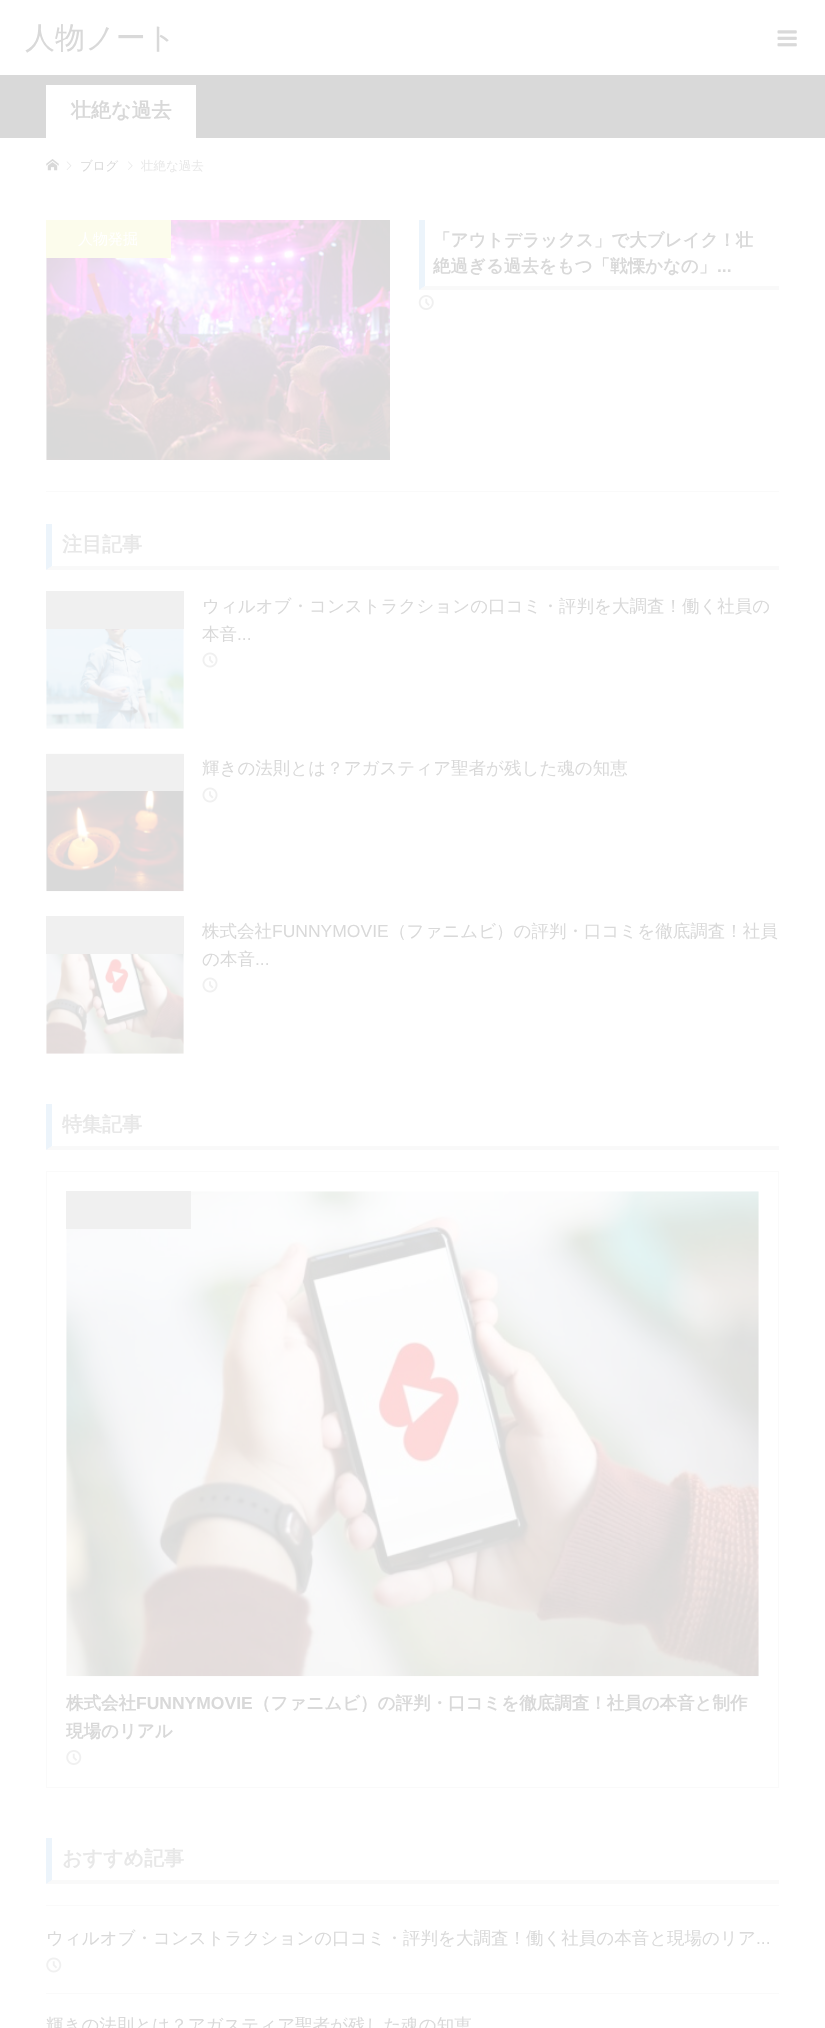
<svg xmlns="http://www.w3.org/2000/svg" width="825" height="2028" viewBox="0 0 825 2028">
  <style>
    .t1 { font: 500 30px WenQuanYi Zen Hei; fill: #d9d9d9; }
    .t2 { font: bold 20px WenQuanYi Zen Hei; fill: #d9d9d9; }
    .t3 { font: 500 12.5px WenQuanYi Zen Hei; fill: #d9d9d9; }
    .t4 { font: 500 12.5px WenQuanYi Zen Hei; fill: #e8e8e8; }
    .t5 { font: 500 15px WenQuanYi Zen Hei; fill: #fff; }
    .t6 { font: bold 17.5px WenQuanYi Zen Hei; fill: #d9d9d9; }
    .t7 { font: bold 17.5px Liberation Sans; fill: #d9d9d9; }
    .t8 { font: bold 20px WenQuanYi Zen Hei; fill: #e8e8e8; }
    .t9 { font: 500 17.5px WenQuanYi Zen Hei; fill: #d9d9d9; }
    .t10 { font: 17.5px Liberation Sans; fill: #d9d9d9; }
  </style>
  <rect width="100%" height="100%" fill="#fff"/>
  <text x="25" y="48" class="t1">人物ノート</text>
  <image x="777" y="30" width="20" height="17" href="images/1.png"/>
  <rect x="0" y="75" width="825" height="63" fill="#d9d9d9"/>
  <rect x="46" y="85" width="150" height="53" fill="#fff"/>
  <text x="71" y="117" class="t2">壮絶な過去</text>
  <image x="46" y="159" width="13" height="12" href="images/2.png"/>
  <image x="66" y="161" width="6" height="9" href="images/3.png"/>
  <text x="80" y="170" class="t3">ブログ</text>
  <image x="128" y="161" width="5" height="9" href="images/4.png"/>
  <text x="141" y="170" class="t4">壮絶な過去</text>
  <image x="46" y="220" width="344" height="240" href="images/5.png"/>
  <rect x="46" y="220" width="125" height="38" fill="#fcfcec"/>
  <text x="78" y="244" class="t5">人物発掘</text>
  <path d="M779 290H419L425 286H779Z" fill="#f9f9f9"/>
  <path d="M419 290V220H425V286Z" fill="#ecf4fb"/>
  <text x="433" y="246" class="t6">「アウトデラックス」で大ブレイク！壮</text>
  <text x="433" y="272" class="t6">絶過ぎる過去をもつ「戦慄かなの」</text>
  <text x="717" y="272" class="t7">...</text>
  <image x="418" y="295" width="16" height="15" href="images/6.png"/>
  <rect x="46" y="491" width="733" height="1" fill="#fafafa"/>
  <path d="M779 570H46L52 566H779Z" fill="#f9f9f9"/>
  <path d="M46 570V524H52V566Z" fill="#ecf4fb"/>
  <text x="62" y="551" class="t8">注目記事</text>
  <rect x="46" y="591" width="138" height="38" fill="#f0f0f0"/>
  <image x="46" y="629" width="138" height="100" href="images/7.png"/>
  <text x="202" y="612" class="t9">ウィルオブ・コンストラクションの口コミ・評判を大調査！働く社員の</text>
  <text x="202" y="640" class="t9">本音</text>
  <text x="237" y="640" class="t10">...</text>
  <image x="202" y="652" width="16" height="16" href="images/8.png"/>
  <image x="46" y="753" width="138" height="139" href="images/9.png"/>
  <rect x="46" y="754" width="138" height="37" fill="#f0f0f0"/>
  <text x="202" y="774" class="t9">輝きの法則とは？アガスティア聖者が残した魂の知恵</text>
  <image x="202" y="787" width="16" height="16" href="images/8.png"/>
  <rect x="46" y="916" width="138" height="38" fill="#f0f0f0"/>
  <image x="46" y="954" width="138" height="100" href="images/10.png"/>
  <text x="202" y="937" class="t9">株式会社</text>
  <text x="272" y="937" class="t10">FUNNYMOVIE</text>
  <text x="389" y="937" class="t9">（ファニムビ）の評判・口コミを徹底調査！社員</text>
  <text x="202" y="965" class="t9">の本音</text>
  <text x="255" y="965" class="t10">...</text>
  <image x="202" y="977" width="16" height="16" href="images/8.png"/>
  <path d="M779 1150H46L52 1146H779Z" fill="#f9f9f9"/>
  <path d="M46 1150V1104H52V1146Z" fill="#ecf4fb"/>
  <text x="62" y="1131" class="t8">特集記事</text>
  <rect x="46.5" y="1171.5" width="732" height="616" fill="none" stroke="#fafafa"/>
  <image x="66" y="1191" width="693" height="486" href="images/11.png"/>
  <rect x="66" y="1191" width="125" height="38" fill="#f0f0f0"/>
  <text x="66" y="1709" class="t6">株式会社</text>
  <text x="136" y="1709" class="t7">FUNNYMOVIE</text>
  <text x="253" y="1709" class="t6">（ファニムビ）の評判・口コミを徹底調査！社員の本音と制作</text>
  <text x="66" y="1737" class="t6">現場のリアル</text>
  <image x="66" y="1750" width="16" height="15" href="images/12.png"/>
  <path d="M779 1884H46L52 1880H779Z" fill="#f9f9f9"/>
  <path d="M46 1884V1838H52V1880Z" fill="#ecf4fb"/>
  <text x="62" y="1865" class="t8">おすすめ記事</text>
  <rect x="46" y="1905" width="733" height="1" fill="#fafafa"/>
  <rect x="46" y="1993" width="733" height="1" fill="#fafafa"/>
  <text x="46" y="1944" class="t9">ウィルオブ・コンストラクションの口コミ・評判を大調査！働く社員の本音と現場のリア</text>
  <text x="756" y="1944" class="t10">...</text>
  <image x="46" y="1957" width="16" height="16" href="images/13.png"/>
  <text x="46" y="2031" class="t9">輝きの法則とは？アガスティア聖者が残した魂の知恵</text>
</svg>
